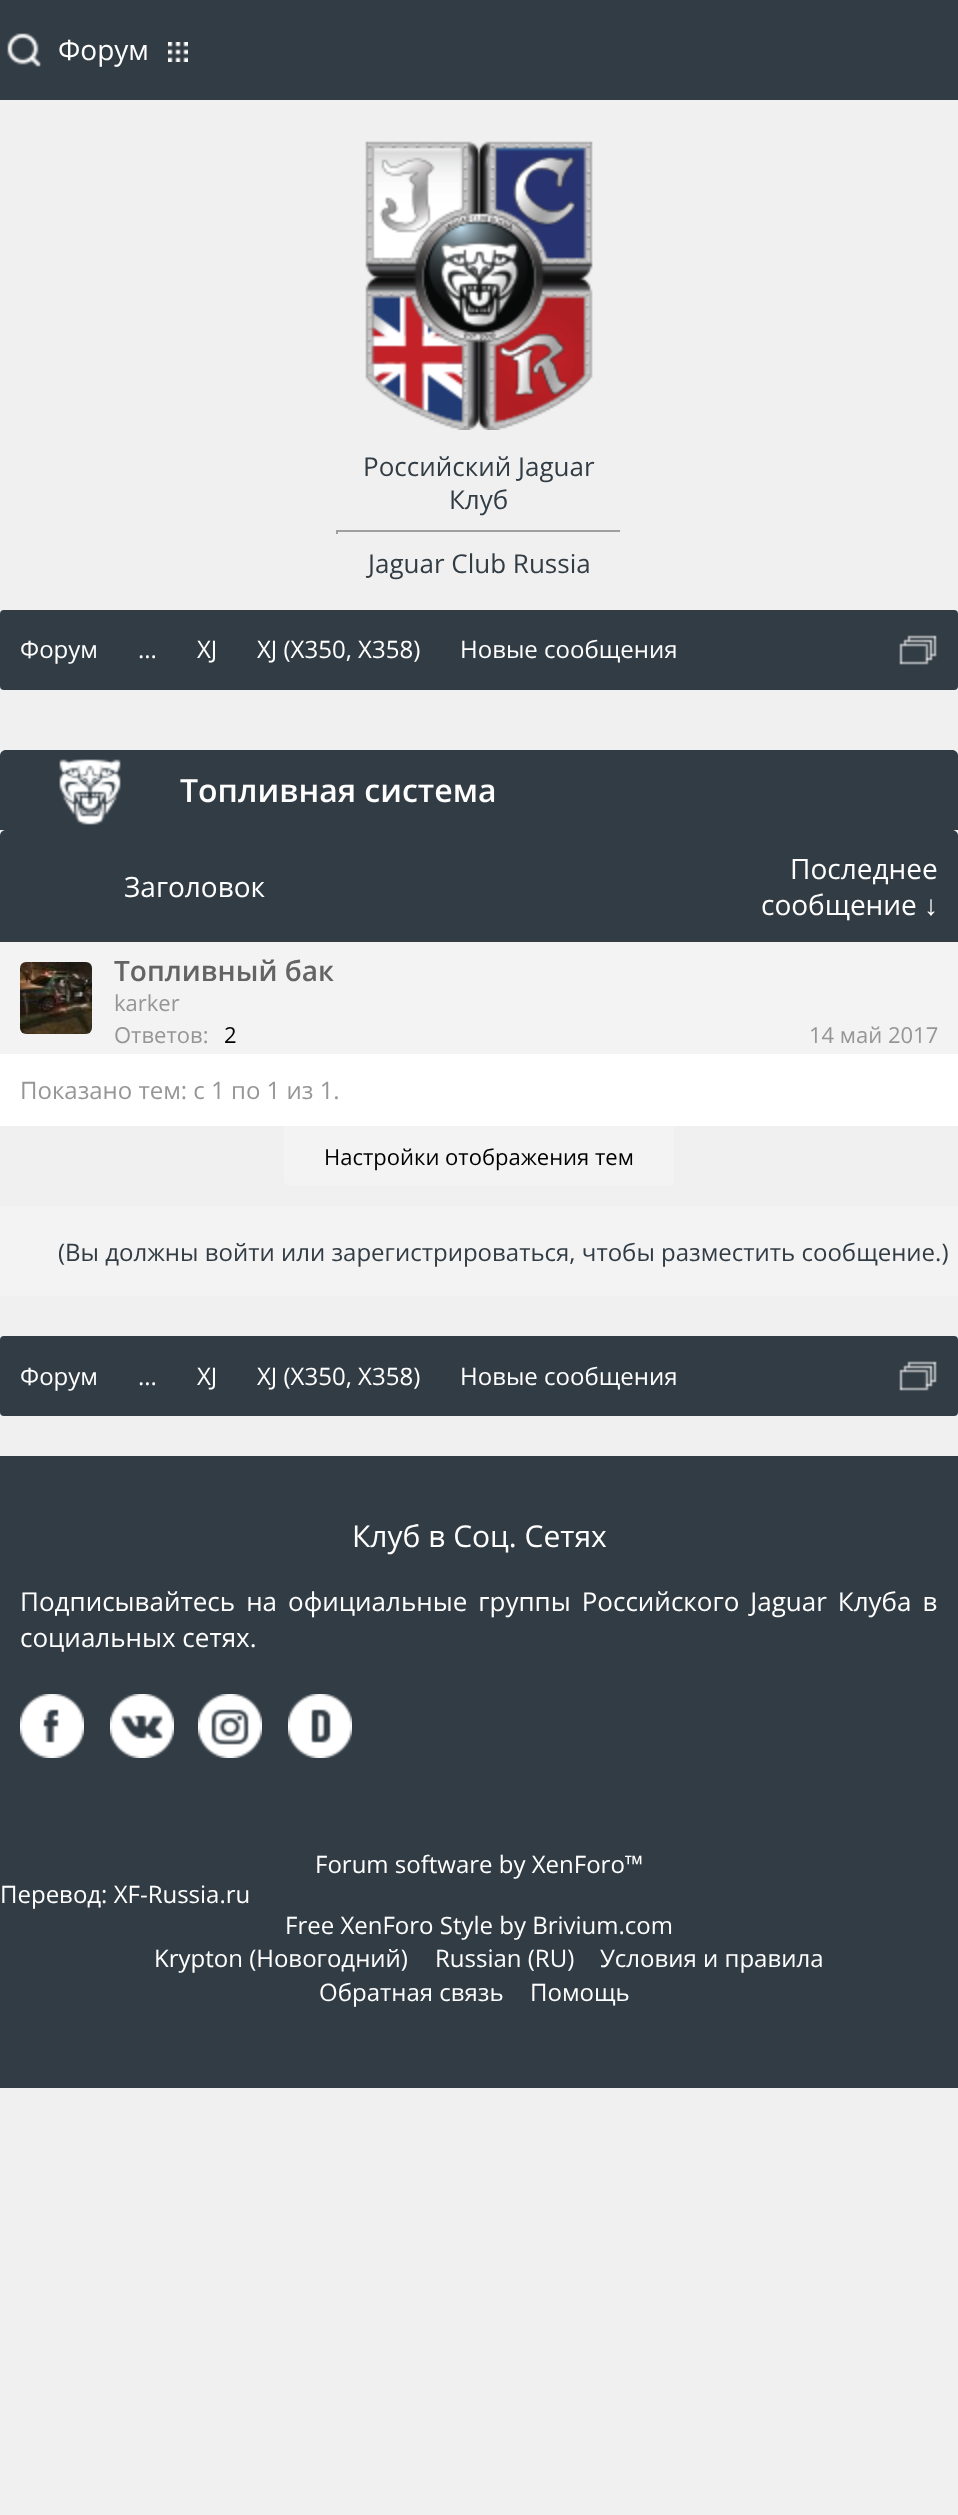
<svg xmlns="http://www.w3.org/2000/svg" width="958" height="2515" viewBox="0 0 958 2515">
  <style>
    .t1 { font: 28px Open Sans; fill: #fff; }
    .t2 { font: 26px Open Sans; fill: #323c44; }
    .t3 { font: 24px Open Sans; fill: #fff; }
    .t4 { font: 600 32px Open Sans; fill: #fff; }
    .t5 { font: 28px Liberation Sans; fill: #fff; }
    .t6 { font: 600 28px Open Sans; fill: #646464; }
    .t7 { font: 22px Open Sans; fill: #969696; }
    .t8 { font: 22px Open Sans; fill: #000; }
    .t9 { font: 24px Open Sans; fill: #969696; }
    .t10 { font: 24px Open Sans; fill: #323c44; }
    .t11 { font: 30px Open Sans; fill: #fff; }
    .t12 { font: 26px Open Sans; fill: #fff; }
  </style>
  <rect width="100%" height="100%" fill="#f0f0f0"/>
  <rect x="0" y="0" width="958" height="100" fill="#323c44"/>
  <image x="7" y="33" width="34" height="34" href="images/1.png"/>
  <text x="58" y="60" class="t1">Форум</text>
  <image x="168" y="42" width="20" height="20" href="images/2.png"/>
  <image x="365" y="141" width="228" height="289" href="images/3.png"/>
  <text x="363" y="476" class="t2">Российский Jaguar</text>
  <text x="449" y="509" class="t2">Клуб</text>
  <rect x="336" y="530" width="286" height="2" fill="#9f9f9f"/>
  <rect x="620" y="530" width="2" height="4" fill="#eee"/>
  <rect x="336" y="530" width="2" height="4" fill="#9f9f9f"/>
  <text x="368" y="573" class="t2">Jaguar Club Russia</text>
  <rect x="0" y="610" width="958" height="80" rx="4" fill="#323c44"/>
  <text x="20" y="658" class="t3">Форум</text>
  <text x="138" y="658" class="t3">...</text>
  <text x="197" y="658" class="t3">XJ</text>
  <text x="257" y="658" class="t3">XJ (X350, X358)</text>
  <text x="460" y="658" class="t3">Новые сообщения</text>
  <image x="899" y="635" width="38" height="30" href="images/4.png"/>
  <path d="M6 750H952C955.5 750 958 752.5 958 756V830H0V756C0 752.5 2.5 750 6 750Z" fill="#323c44"/>
  <image x="59" y="759" width="62" height="66" href="images/5.png"/>
  <text x="180" y="802" class="t4">Топливная система</text>
  <path d="M6 830H952C955.5 830 958 832.5 958 836V942H0V836C0 832.5 2.5 830 6 830Z" fill="#323c44"/>
  <text x="124" y="897" class="t1">Заголовок</text>
  <text x="790" y="879" class="t1">Последнее</text>
  <text x="761" y="915" class="t1">сообщение</text>
  <text x="924" y="915" class="t5">↓</text>
  <rect x="0" y="942" width="958" height="112" fill="#f3f3f3"/>
  <image x="20" y="962" width="72" height="72" href="images/6.png"/>
  <text x="114" y="981" class="t6">Топливный бак</text>
  <text x="114" y="1011" class="t7">karker</text>
  <text x="809" y="1043" class="t7">14 май 2017</text>
  <text x="114" y="1043" class="t7">Ответов:</text>
  <text x="224" y="1043" class="t8">2</text>
  <rect x="0" y="1054" width="958" height="72" fill="#fff"/>
  <text x="20" y="1099" class="t9">Показано тем: с 1 по 1 из 1.</text>
  <path d="M284 1126H674V1180C674 1183.5 671.5 1186 668 1186H290C286.5 1186 284 1183.5 284 1180Z" fill="#f3f3f3"/>
  <text x="324" y="1165" class="t8">Настройки отображения тем</text>
  <rect x="0" y="1206" width="958" height="90" fill="#f3f3f3"/>
  <text x="58" y="1261" class="t10">(Вы должны войти или зарегистрироваться, чтобы разместить сообщение.)</text>
  <rect x="0" y="1336" width="958" height="80" rx="4" fill="#323c44"/>
  <text x="20" y="1385" class="t3">Форум</text>
  <text x="138" y="1385" class="t3">...</text>
  <text x="197" y="1385" class="t3">XJ</text>
  <text x="257" y="1385" class="t3">XJ (X350, X358)</text>
  <text x="460" y="1385" class="t3">Новые сообщения</text>
  <image x="899" y="1361" width="38" height="30" href="images/4.png"/>
  <rect x="0" y="1456" width="958" height="632" fill="#323c44"/>
  <text x="352" y="1547" class="t11">Клуб в Соц. Сетях</text>
  <text x="20" y="1611" word-spacing="4.25" class="t12">Подписывайтесь на официальные группы Российского Jaguar Клуба в</text>
  <text x="20" y="1647" class="t12">социальных сетях.</text>
  <image x="20" y="1694" width="64" height="64" href="images/7.png"/>
  <image x="110" y="1694" width="64" height="64" href="images/8.png"/>
  <image x="198" y="1694" width="64" height="64" href="images/9.png"/>
  <image x="288" y="1694" width="64" height="64" href="images/10.png"/>
  <text x="315" y="1873" class="t3">Forum software by XenForo™</text>
  <text x="0" y="1903" class="t3">Перевод: XF-Russia.ru</text>
  <text x="285" y="1934" class="t3">Free XenForo Style by Brivium.com</text>
  <text x="154" y="1967" class="t3">Krypton (Новогодний)</text>
  <text x="435" y="1967" class="t3">Russian (RU)</text>
  <text x="600" y="1967" class="t3">Условия и правила</text>
  <text x="319" y="2001" class="t3">Обратная связь</text>
  <text x="530" y="2001" class="t3">Помощь</text>
</svg>
